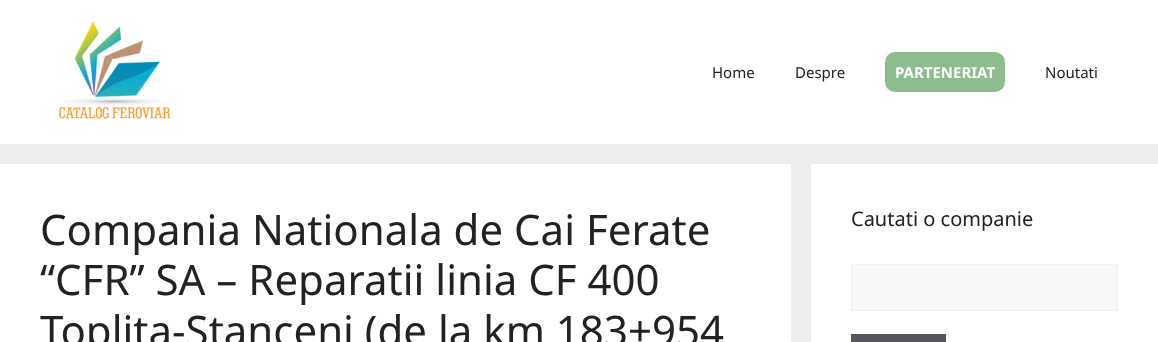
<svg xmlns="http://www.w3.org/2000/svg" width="1158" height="342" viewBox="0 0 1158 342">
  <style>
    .t1 { font: 15px Noto Sans; fill: #222; }
    .t2 { font: bold 15px Noto Sans; fill: #fff; }
    .t3 { font: 42px Noto Sans; fill: #222; }
    .t4 { font: 20px Noto Sans; fill: #222; }
  </style>
  <rect width="100%" height="100%" fill="#eeeded"/>
  <rect x="0" y="0" width="1158" height="144" fill="#fff"/>
  <image x="58" y="21" width="113" height="98" href="images/1.png"/>
  <text x="712" y="78" class="t1">Home</text>
  <text x="795" y="78" class="t1">Despre</text>
  <rect x="885" y="52" width="120" height="40" rx="10" fill="#8fbc8f"/>
  <text x="895" y="78" class="t2">PARTENERIAT</text>
  <text x="1045" y="78" class="t1">Noutati</text>
  <rect x="0" y="164" width="791" height="178" fill="#fff"/>
  <text x="40" y="245" class="t3">Compania Nationala de Cai Ferate</text>
  <text x="40" y="295" class="t3">“CFR” SA – Reparatii linia CF 400</text>
  <text x="40" y="346" class="t3">Toplita-Stanceni (de la km 183+954</text>
  <rect x="811" y="164" width="347" height="178" fill="#fff"/>
  <text x="851" y="226" class="t4">Cautati o companie</text>
  <rect x="851.5" y="264.5" width="266" height="46" fill="#f7f8f9" stroke="#f0f0f0"/>
  <rect x="851" y="334" width="95" height="8" fill="#55555e"/>
</svg>
